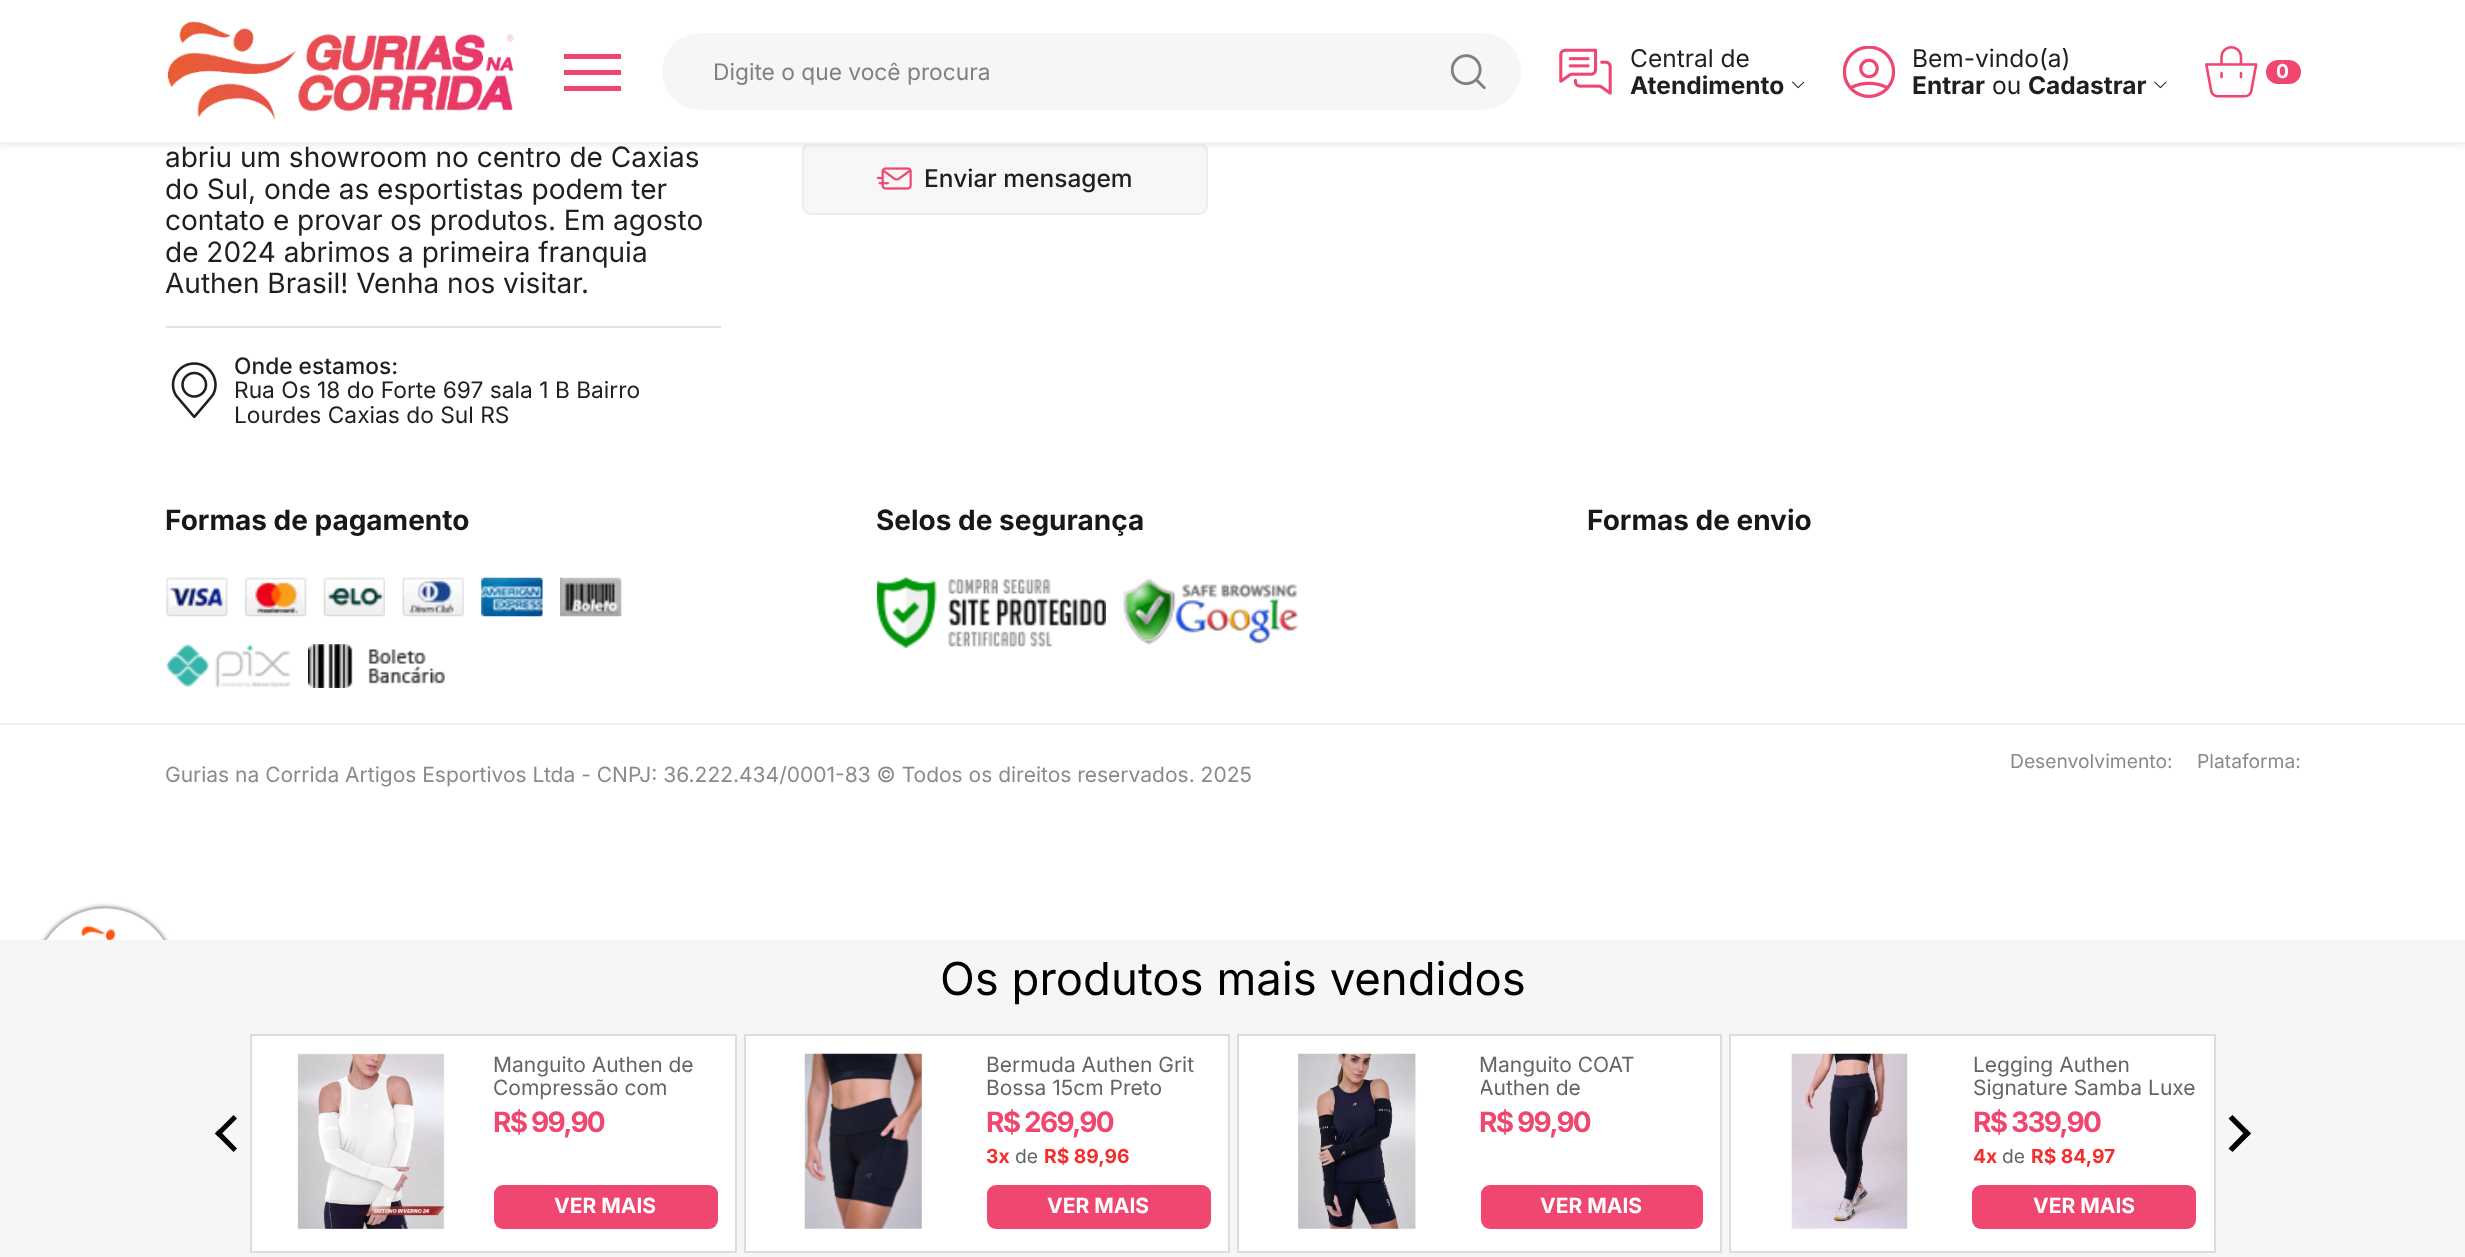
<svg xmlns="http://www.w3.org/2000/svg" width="2465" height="1257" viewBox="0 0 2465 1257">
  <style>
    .t1 { font: 22.75px Inter; fill: #808080; }
    .t2 { font: 24.5px Inter; fill: #201f1f; }
    .t3 { font: bold 24.5px Inter; fill: #201f1f; }
    .t4 { font: bold 19.25px Inter; fill: #fff; }
    .t5 { font: 28px Inter; fill: #201f1f; }
    .t6 { font: 500 22.75px Inter; fill: #201f1f; }
    .t7 { font: 22.75px Inter; fill: #201f1f; }
    .t8 { font: 500 24.5px Inter; fill: #201f1f; }
    .t9 { font: bold 28px Inter; fill: #181818; }
    .t10 { font: 19.25px Inter; fill: #8a8a8a; }
    .t11 { font: 21px Inter; fill: #8a8a8a; }
    .t12 { font: 45.5px Inter; fill: #000; }
    .t13 { font: 21px Inter; fill: #646464; }
    .t14 { font: bold 28px Inter; letter-spacing: -1.75px; fill: #ef476f; }
    .t15 { font: bold 21px Inter; fill: #fff; }
    .t16 { font: bold 19.25px Inter; fill: #f52c2c; }
    .t17 { font: 19.25px Inter; fill: #646464; }
  </style>
  <defs>
    <clipPath id="clip1"><rect x="1481" y="1054" width="222" height="45"/></clipPath>
    <clipPath id="clip2"><rect x="1972" y="1054" width="224" height="45"/></clipPath>
  </defs>
  <rect width="100%" height="100%" fill="#fff"/>
  <rect x="803" y="143" width="404" height="71" rx="8" fill="#f7f7f7" stroke="#ededed" stroke-width="2"/>
  <rect x="0" y="2" width="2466" height="143" fill="#52525221" filter="blur(3.5px)"/>
  <rect x="0" y="0" width="2465" height="142" fill="#fff"/>
  <rect x="0" y="142" width="2465" height="2" fill="#f1f1f1"/>
  <image x="167" y="21" width="347" height="99" href="images/1.png"/>
  <rect x="564" y="86" width="57" height="5" fill="#ef476f"/>
  <rect x="564" y="54" width="57" height="5" fill="#ef476f"/>
  <rect x="564" y="70" width="57" height="5" fill="#ef476f"/>
  <rect x="662" y="33" width="859" height="77" rx="38.5" fill="#f6f6f6"/>
  <text x="713" y="80" class="t1">Digite o que você procura</text>
  <image x="1451" y="54" width="35" height="35" href="images/2.png"/>
  <image x="1559" y="48" width="53" height="47" href="images/3.png"/>
  <text x="1630" y="67" class="t2">Central de</text>
  <text x="1630" y="94" class="t3">Atendimento</text>
  <image x="1792" y="81" width="12" height="8" href="images/4.png"/>
  <image x="1843" y="46" width="52" height="52" href="images/5.png"/>
  <text x="1912" y="67" class="t2">Bem-vindo(a)</text>
  <text x="1912" y="94" class="t3">Entrar</text>
  <text x="1992" y="94" class="t2">ou</text>
  <text x="2028" y="94" class="t3">Cadastrar</text>
  <image x="2154" y="81" width="13" height="8" href="images/6.png"/>
  <image x="2205" y="46" width="53" height="52" href="images/7.png"/>
  <rect x="2266" y="60" width="35" height="24" rx="12" fill="#ef476f"/>
  <text x="2276" y="78" class="t4">0</text>
  <text x="165" y="167" class="t5">abriu um showroom no centro de Caxias</text>
  <text x="165" y="199" class="t5">do Sul, onde as esportistas podem ter</text>
  <text x="165" y="230" class="t5">contato e provar os produtos. Em agosto</text>
  <text x="165" y="262" class="t5">de 2024 abrimos a primeira franquia</text>
  <text x="165" y="293" class="t5">Authen Brasil! Venha nos visitar.</text>
  <rect x="166" y="326" width="555" height="2" fill="#e2e2e2"/>
  <image x="171" y="362" width="46" height="56" href="images/8.png"/>
  <text x="234" y="374" class="t6">Onde estamos:</text>
  <text x="234" y="398" class="t7">Rua Os 18 do Forte 697 sala 1 B Bairro</text>
  <text x="234" y="423" class="t7">Lourdes Caxias do Sul RS</text>
  <image x="877" y="167" width="35" height="23" href="images/9.png"/>
  <text x="924" y="187" class="t8">Enviar mensagem</text>
  <text x="165" y="530" class="t9">Formas de pagamento</text>
  <image x="166" y="577" width="62" height="40" href="images/10.png"/>
  <image x="245" y="577" width="62" height="40" href="images/11.png"/>
  <image x="323" y="577" width="62" height="40" href="images/12.png"/>
  <image x="402" y="577" width="62" height="40" href="images/13.png"/>
  <image x="481" y="577" width="62" height="40" href="images/14.png"/>
  <image x="560" y="577" width="62" height="40" href="images/15.png"/>
  <image x="166" y="644" width="125" height="44" href="images/16.png"/>
  <image x="308" y="644" width="137" height="44" href="images/17.png"/>
  <text x="876" y="530" class="t9">Selos de segurança</text>
  <image x="876" y="577" width="230" height="71" href="images/18.png"/>
  <image x="1123" y="579" width="176" height="66" href="images/19.png"/>
  <text x="1587" y="530" class="t9">Formas de envio</text>
  <rect x="0" y="723" width="2465" height="2" fill="#efefef"/>
  <text x="2010" y="768" class="t10">Desenvolvimento:</text>
  <text x="2197" y="768" class="t10">Plataforma:</text>
  <text x="165" y="782" class="t11">Gurias na Corrida Artigos Esportivos Ltda - CNPJ: 36.222.434/0001-83 © Todos os direitos reservados. 2025</text>
  <rect x="35" y="908" width="140" height="140" rx="70" fill="#000000bf" filter="blur(2.5px)"/>
  <image x="46" y="908" width="118" height="32" href="images/20.png"/>
  <rect x="0" y="940" width="2465" height="317" fill="#f6f6f6"/>
  <text x="940" y="995" class="t12">Os produtos mais vendidos</text>
  <rect x="251" y="1035" width="485" height="217" fill="#fff" stroke="#dcdcdc" stroke-width="2"/>
  <image x="297" y="1053" width="148" height="176" href="images/21.png"/>
  <text x="493" y="1072" class="t13">Manguito Authen de</text>
  <text x="493" y="1095" class="t13">Compressão com</text>
  <text x="493" y="1132" class="t14">R$ 99,90</text>
  <rect x="494" y="1185" width="224" height="44" rx="9" fill="#ef476f"/>
  <text x="554" y="1213" class="t15">VER MAIS</text>
  <rect x="745" y="1035" width="484" height="217" fill="#fff" stroke="#dcdcdc" stroke-width="2"/>
  <image x="804" y="1053" width="118" height="176" href="images/22.png"/>
  <text x="986" y="1072" class="t13">Bermuda Authen Grit</text>
  <text x="986" y="1095" class="t13">Bossa 15cm Preto</text>
  <text x="986" y="1132" class="t14">R$ 269,90</text>
  <text x="986" y="1163" class="t16">3x</text>
  <text x="1015" y="1163" class="t17">de</text>
  <text x="1044" y="1163" class="t16">R$ 89,96</text>
  <rect x="987" y="1185" width="224" height="44" rx="9" fill="#ef476f"/>
  <text x="1047" y="1213" class="t15">VER MAIS</text>
  <rect x="1238" y="1035" width="483" height="217" fill="#fff" stroke="#dcdcdc" stroke-width="2"/>
  <image x="1298" y="1053" width="118" height="176" href="images/23.png"/>
  <text x="1479" y="1072" class="t13">Manguito COAT</text>
  <g clip-path="url(#clip1)">
    <text x="1479" y="1095" class="t13">Authen de</text>
  </g>
  <text x="1479" y="1132" class="t14">R$ 99,90</text>
  <rect x="1481" y="1185" width="222" height="44" rx="9" fill="#ef476f"/>
  <text x="1540" y="1213" class="t15">VER MAIS</text>
  <rect x="1730" y="1035" width="485" height="217" fill="#fff" stroke="#dcdcdc" stroke-width="2"/>
  <image x="1791" y="1053" width="117" height="176" href="images/24.png"/>
  <text x="1973" y="1072" class="t13">Legging Authen</text>
  <g clip-path="url(#clip2)">
    <text x="1973" y="1095" class="t13">Signature Samba Luxe</text>
  </g>
  <text x="1973" y="1132" class="t14">R$ 339,90</text>
  <text x="1973" y="1163" class="t16">4x</text>
  <text x="2002" y="1163" class="t17">de</text>
  <text x="2031" y="1163" class="t16">R$ 84,97</text>
  <rect x="1972" y="1185" width="224" height="44" rx="9" fill="#ef476f"/>
  <text x="2033" y="1213" class="t15">VER MAIS</text>
  <path d="M218.5 1129.5L237 1148.5L233.5 1152L215 1133.5Z" fill="#000"/>
  <path d="M233.5 1115L237 1118.5L218.5 1137L215 1133.5Z" fill="#000"/>
  <path d="M2247 1137L2228.5 1118.5L2232.5 1115L2251 1133.5Z" fill="#000"/>
  <path d="M2232.5 1152L2228.5 1148.5L2247 1129.5L2251 1133.5Z" fill="#000"/>
</svg>
